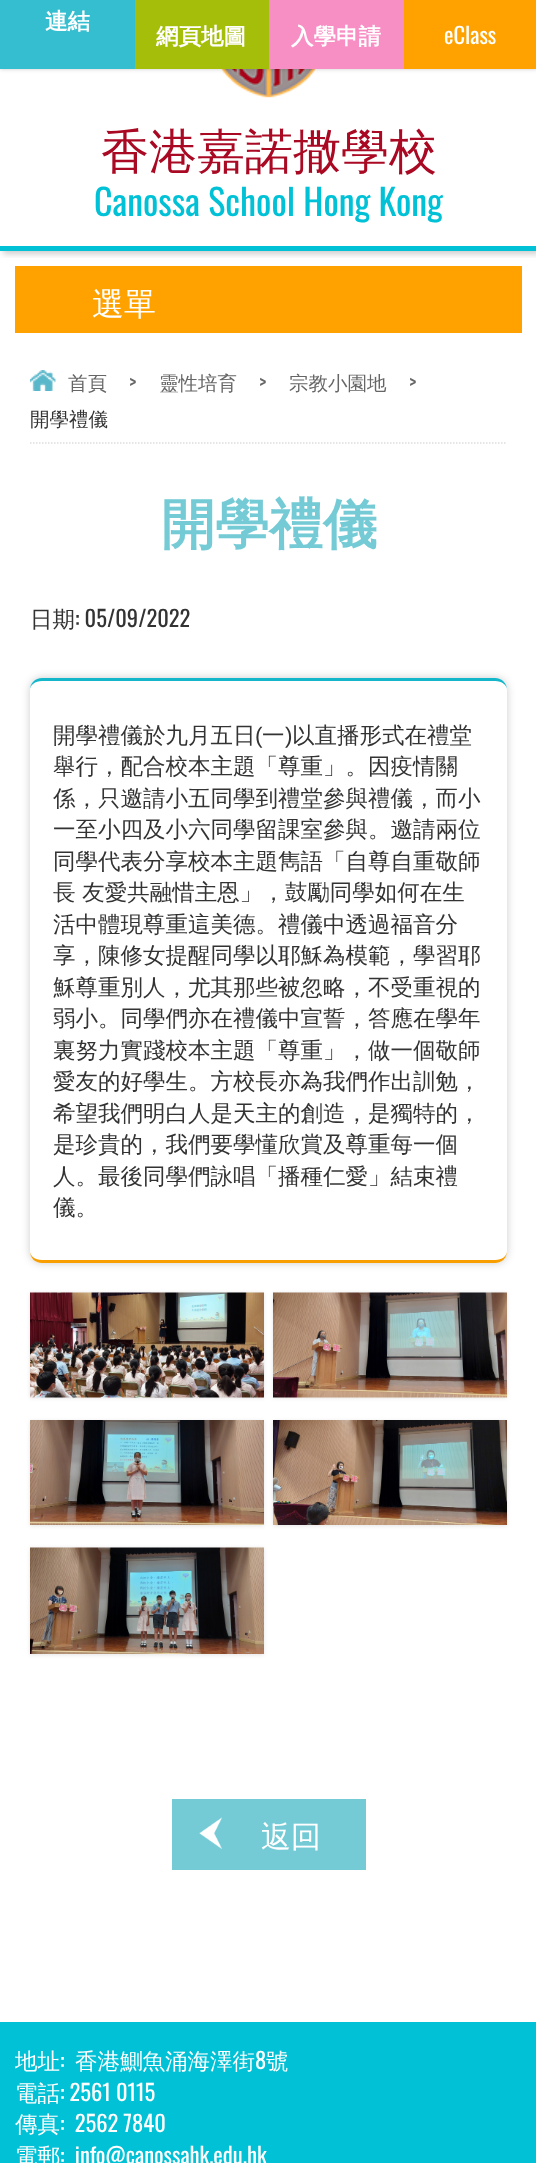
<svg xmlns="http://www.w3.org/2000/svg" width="536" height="2163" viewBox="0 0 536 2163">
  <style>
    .t1 { font: bold 22.5px WenQuanYi Zen Hei; fill: #fff; }
    .t2 { font: 22.5px Oswald; fill: #fff; }
    .t3 { font: 500 48px WenQuanYi Zen Hei; fill: #a90923; }
    .t4 { font: 36px Oswald; fill: #00c1d5; }
    .t5 { font: 500 32px WenQuanYi Zen Hei; fill: #fff; }
    .t6 { font: 500 19.5px WenQuanYi Zen Hei; fill: #666; }
    .t7 { font: 19.5px Oswald; fill: #666; }
    .t8 { font: 500 19.5px WenQuanYi Zen Hei; fill: #333; }
    .t9 { font: bold 54px WenQuanYi Zen Hei; fill: #74cbd5; }
    .t10 { font: 500 22.5px WenQuanYi Zen Hei; fill: #333; }
    .t11 { font: 22.5px Oswald; fill: #333; }
    .t12 { font: 22.5px Liberation Sans; fill: #333; }
    .t13 { font: 500 30px WenQuanYi Zen Hei; fill: #fff; }
    .t14 { font: 500 22.5px WenQuanYi Zen Hei; fill: #fff; }
  </style>
  <defs>
    <clipPath id="clip1"><rect x="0" y="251" width="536" height="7"/></clipPath>
  </defs>
  <rect width="100%" height="100%" fill="#fff"/>
  <g clip-path="url(#clip1)">
    <rect x="3" y="-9" width="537" height="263" fill="#00000033" filter="blur(3px)"/>
  </g>
  <rect x="0" y="246" width="536" height="5" fill="#00c1d5"/>
  <image x="221" y="69" width="95" height="29" href="images/1.png"/>
  <rect x="0" y="0" width="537" height="69" fill="#00000033" filter="blur(2px)"/>
  <rect x="0" y="0" width="135" height="69" fill="#35becf"/>
  <text x="45" y="29" class="t1">連結</text>
  <rect x="135" y="0" width="134" height="69" fill="#a5be0a"/>
  <text x="156" y="44" class="t1">網頁地圖</text>
  <rect x="269" y="0" width="135" height="69" fill="#f78fc4"/>
  <text x="291" y="44" class="t1">入學申請</text>
  <rect x="404" y="0" width="132" height="69" fill="#ffa200"/>
  <text x="444" y="44" class="t2">eClass</text>
  <text x="101" y="168" class="t3">香港嘉諾撒學校</text>
  <text x="94" y="216" class="t4">Canossa School Hong Kong</text>
  <rect x="15" y="266" width="507" height="67" fill="#ffa200"/>
  <text x="92" y="315" class="t5">選單</text>
  <path d="M30 443H507" fill="none" stroke="#ddd" stroke-width="1.5" stroke-dasharray="1.5 1.5"/>
  <image x="30" y="370" width="26" height="21" href="images/2.png"/>
  <text x="68" y="390" class="t6">首頁</text>
  <text x="129" y="390" class="t7">&gt;</text>
  <text x="159" y="390" class="t6">靈性培育</text>
  <text x="259" y="390" class="t7">&gt;</text>
  <text x="289" y="390" class="t6">宗教小園地</text>
  <text x="409" y="390" class="t7">&gt;</text>
  <text x="30" y="426" class="t8">開學禮儀</text>
  <text x="161" y="543" class="t9">開學禮儀</text>
  <text x="30" y="627" class="t10">日期</text>
  <text x="75" y="627" class="t11">: 05/09/2022</text>
  <rect x="30" y="678" width="477" height="585" rx="12" fill="#00000033" filter="blur(4px)"/>
  <rect x="30" y="678" width="477" height="585" rx="12" fill="#fff"/>
  <path d="M42 678C35 678 30 683 30 690C30 685 35 681 42 681H495C502 681 507 685 507 690C507 683 502 678 495 678Z" fill="#14b7ca"/>
  <path d="M495 1263C502 1263 507 1258 507 1251C507 1256 502 1260 495 1260H42C35 1260 30 1256 30 1251C30 1258 35 1263 42 1263Z" fill="#f99e00"/>
  <text x="53" y="743" class="t10">開學禮儀於九月五日</text>
  <text x="255" y="743" class="t12">(</text>
  <text x="262" y="743" class="t10">一</text>
  <text x="285" y="743" class="t12">)</text>
  <text x="292" y="743" class="t10">以直播形式在禮堂</text>
  <text x="53" y="774" class="t10">舉行，配合校本主題「尊重」。因疫情關</text>
  <text x="53" y="806" class="t10">係，只邀請小五同學到禮堂參與禮儀，而小</text>
  <text x="53" y="837" class="t10">一至小四及小六同學留課室參與。邀請兩位</text>
  <text x="53" y="869" class="t10">同學代表分享校本主題雋語「自尊自重敬師</text>
  <text x="53" y="900" class="t10">長 友愛共融惜主恩」，鼓勵同學如何在生</text>
  <text x="53" y="932" class="t10">活中體現尊重這美德。禮儀中透過福音分</text>
  <text x="53" y="963" class="t10">享，陳修女提醒同學以耶穌為模範，學習耶</text>
  <text x="53" y="995" class="t10">穌尊重別人，尤其那些被忽略，不受重視的</text>
  <text x="53" y="1026" class="t10">弱小。同學們亦在禮儀中宣誓，答應在學年</text>
  <text x="53" y="1058" class="t10">裏努力實踐校本主題「尊重」，做一個敬師</text>
  <text x="53" y="1089" class="t10">愛友的好學生。方校長亦為我們作出訓勉，</text>
  <text x="53" y="1121" class="t10">希望我們明白人是天主的創造，是獨特的，</text>
  <text x="53" y="1152" class="t10">是珍貴的，我們要學懂欣賞及尊重每一個</text>
  <text x="53" y="1184" class="t10">人。最後同學們詠唱「播種仁愛」結束禮</text>
  <text x="53" y="1215" class="t10">儀。</text>
  <rect x="30" y="1293" width="234" height="105" fill="#0000001a" filter="blur(2px)"/>
  <image x="30" y="1292" width="234" height="106" href="images/3.png"/>
  <rect x="273" y="1293" width="234" height="105" fill="#0000001a" filter="blur(2px)"/>
  <image x="273" y="1292" width="234" height="106" href="images/4.png"/>
  <rect x="30" y="1421" width="234" height="105" fill="#0000001a" filter="blur(2px)"/>
  <image x="30" y="1420" width="234" height="105" href="images/5.png"/>
  <rect x="273" y="1421" width="234" height="105" fill="#0000001a" filter="blur(2px)"/>
  <image x="273" y="1420" width="234" height="105" href="images/6.png"/>
  <rect x="30" y="1548" width="234" height="107" fill="#0000001a" filter="blur(2px)"/>
  <image x="30" y="1547" width="234" height="107" href="images/7.png"/>
  <rect x="172" y="1799" width="194" height="71" fill="#74cbd5"/>
  <image x="199" y="1817" width="23" height="32" href="images/8.png"/>
  <text x="261" y="1847" class="t13">返回</text>
  <rect x="0" y="2022" width="536" height="141" fill="#00c1d5"/>
  <text x="15" y="2069" class="t14">地址</text>
  <text x="60" y="2069" class="t2">:</text>
  <text x="75" y="2069" class="t14">香港鰂魚涌海澤街</text>
  <text x="255" y="2069" class="t2">8</text>
  <text x="266" y="2069" class="t14">號</text>
  <text x="15" y="2101" class="t14">電話</text>
  <text x="60" y="2101" class="t2">: 2561 0115</text>
  <text x="15" y="2132" class="t14">傳真</text>
  <text x="60" y="2132" class="t2" xml:space="preserve">:  2562 7840</text>
  <text x="15" y="2164" class="t14">電郵</text>
  <text x="60" y="2164" class="t2" xml:space="preserve">:  info@canossahk.edu.hk</text>
</svg>
